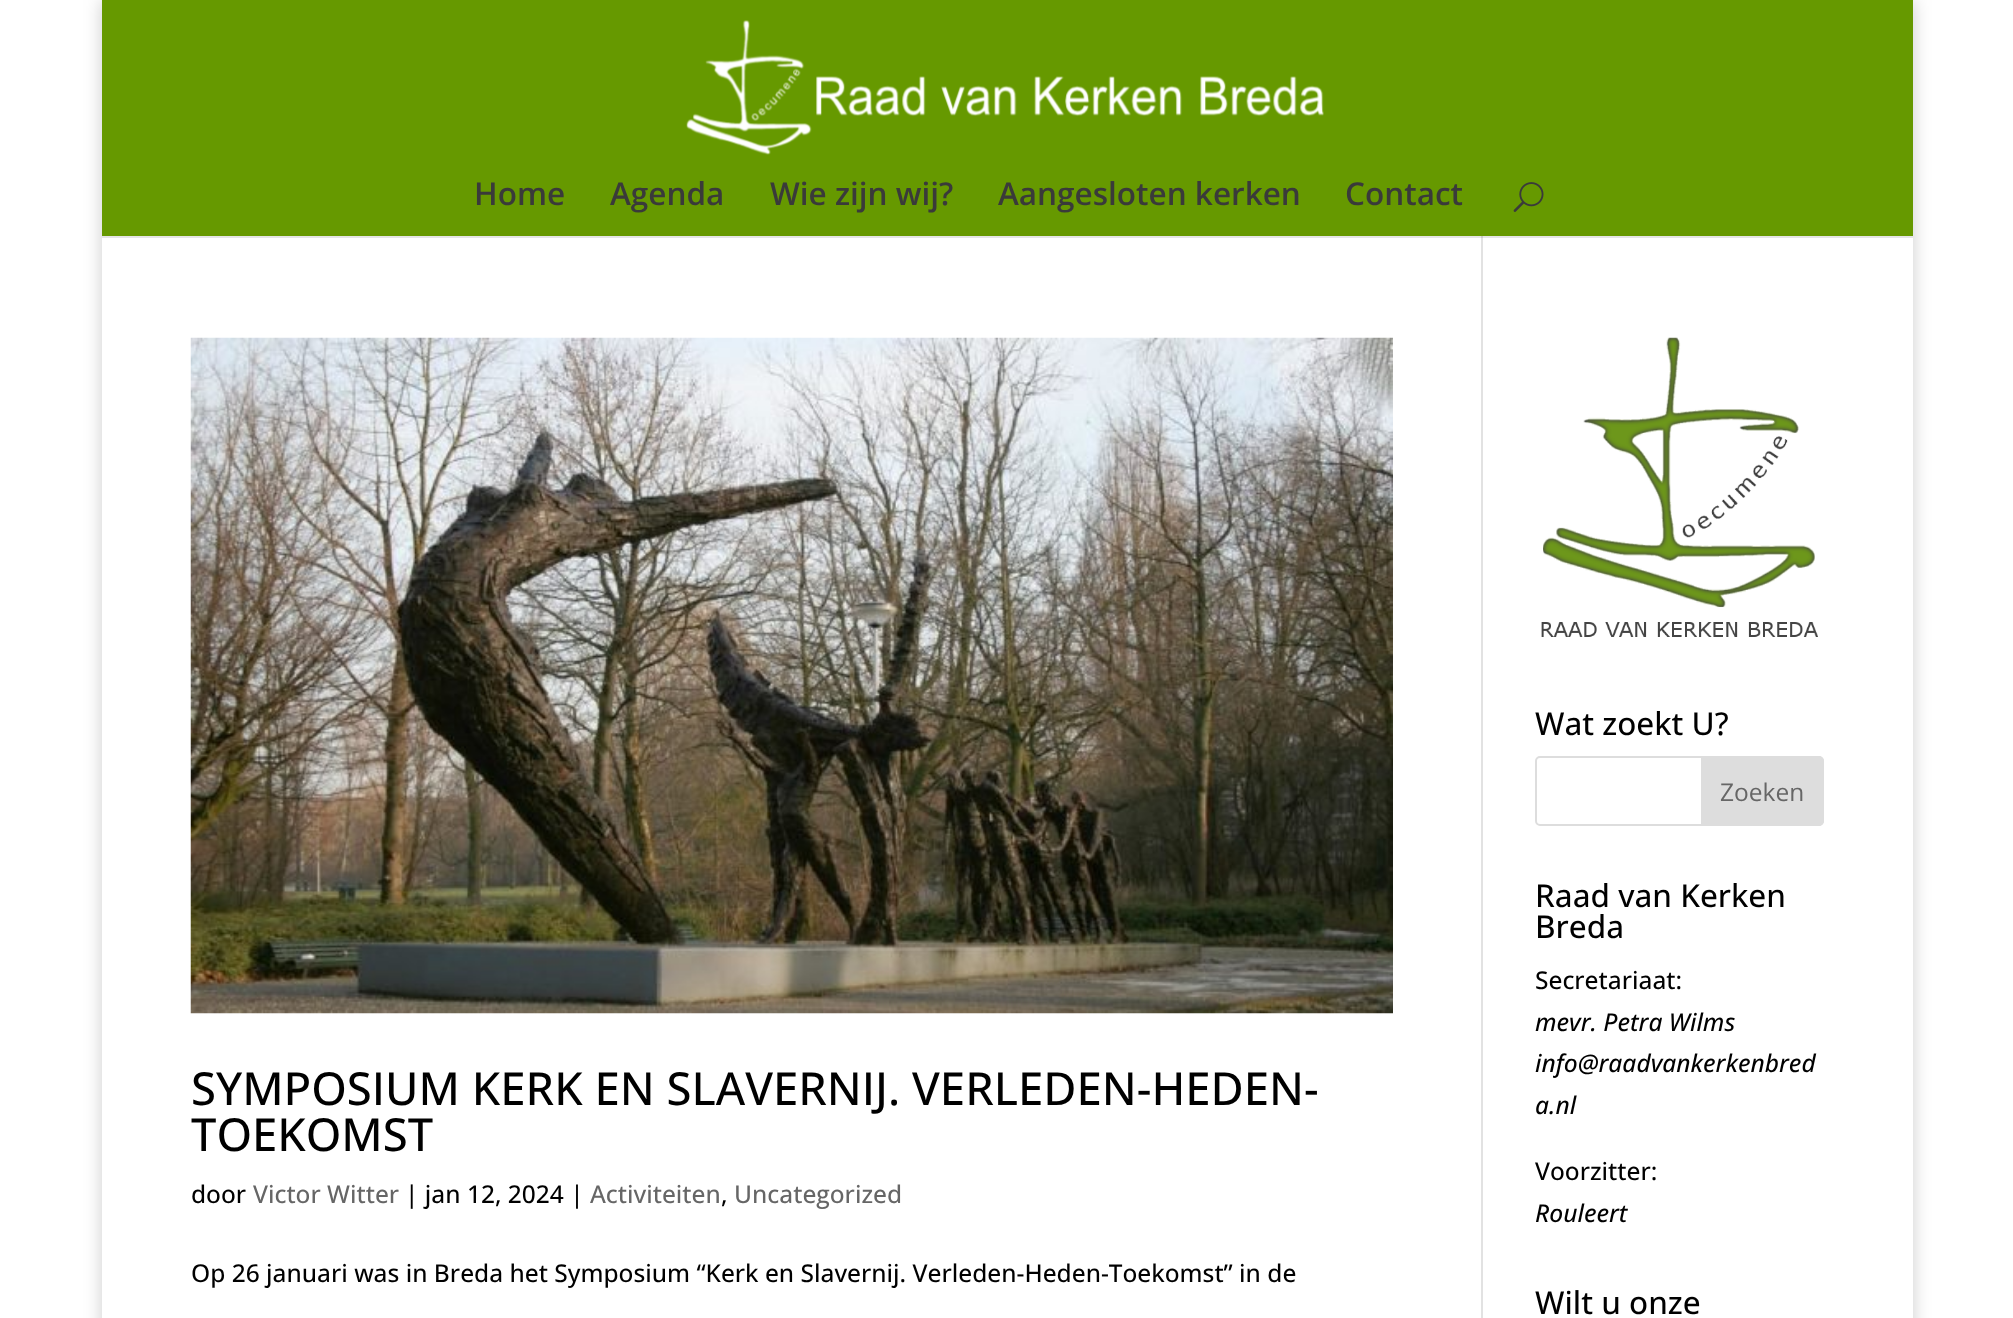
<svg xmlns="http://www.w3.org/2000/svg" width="2013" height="1318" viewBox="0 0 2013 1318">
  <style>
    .t1 { font: 600 31.5px Open Sans; fill: #3a3a3a; }
    .t2 { font: 500 45.5px Open Sans; fill: #000; }
    .t3 { font: 500 24.5px Open Sans; fill: #000; }
    .t4 { font: 500 24.5px Open Sans; fill: #666; }
    .t5 { font: 500 31.5px Open Sans; fill: #000; }
    .t6 { font: 24.5px Open Sans; fill: #666; }
    .t7 { font: italic 500 24.5px Open Sans; fill: #000; }
  </style>
  <rect width="100%" height="100%" fill="#fff"/>
  <rect x="102" y="0" width="1811" height="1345" fill="#00000033" filter="blur(9px)"/>
  <rect x="102" y="236" width="1811" height="1082" fill="#fff"/>
  <rect x="1481" y="236" width="2" height="1082" fill="#e2e2e2"/>
  <path d="M102 236V238H1913V2V236Z" fill="#0000001a"/>
  <rect x="102" y="0" width="1811" height="236" fill="#690"/>
  <image x="686" y="20" width="638" height="135" href="images/1.png"/>
  <text x="474" y="205" class="t1">Home</text>
  <text x="610" y="205" class="t1">Agenda</text>
  <text x="770" y="205" class="t1">Wie zijn wij?</text>
  <text x="998" y="205" class="t1">Aangesloten kerken</text>
  <text x="1345" y="205" class="t1">Contact</text>
  <image x="1513" y="182" width="31" height="30" href="images/2.png"/>
  <image x="190" y="337" width="1203" height="677" href="images/3.png"/>
  <text x="191" y="1105" class="t2">SYMPOSIUM KERK EN SLAVERNIJ. VERLEDEN-HEDEN-</text>
  <text x="191" y="1151" class="t2">TOEKOMST</text>
  <text x="191" y="1203" class="t3">door</text>
  <text x="253" y="1203" class="t4">Victor Witter</text>
  <text x="405" y="1203" class="t3">| jan 12, 2024 |</text>
  <text x="590" y="1203" class="t4">Activiteiten</text>
  <text x="721" y="1203" class="t3">,</text>
  <text x="734" y="1203" class="t4">Uncategorized</text>
  <text x="191" y="1282" class="t3">Op 26 januari was in Breda het Symposium “Kerk en Slavernij. Verleden-Heden-Toekomst” in de</text>
  <image x="1541" y="337" width="277" height="300" href="images/4.png"/>
  <text x="1535" y="735" class="t5">Wat zoekt U?</text>
  <rect x="1536" y="757" width="287" height="68" rx="4" fill="none" stroke="#ddd" stroke-width="2"/>
  <path d="M1702 757H1819C1821 757 1823 759 1823 761V821C1823 823 1821 825 1819 825H1702Z" fill="#ddd" stroke="#ddd" stroke-width="2"/>
  <text x="1720" y="801" class="t6">Zoeken</text>
  <text x="1535" y="907" class="t5">Raad van Kerken</text>
  <text x="1535" y="938" class="t5">Breda</text>
  <text x="1535" y="989" class="t3">Secretariaat:</text>
  <text x="1535" y="1031" class="t7">mevr. Petra Wilms</text>
  <text x="1535" y="1072" class="t7">info@raadvankerkenbred</text>
  <text x="1535" y="1114" class="t7">a.nl</text>
  <text x="1535" y="1180" class="t3">Voorzitter:</text>
  <text x="1535" y="1222" class="t7">Rouleert</text>
  <text x="1535" y="1314" class="t5">Wilt u onze</text>
</svg>
